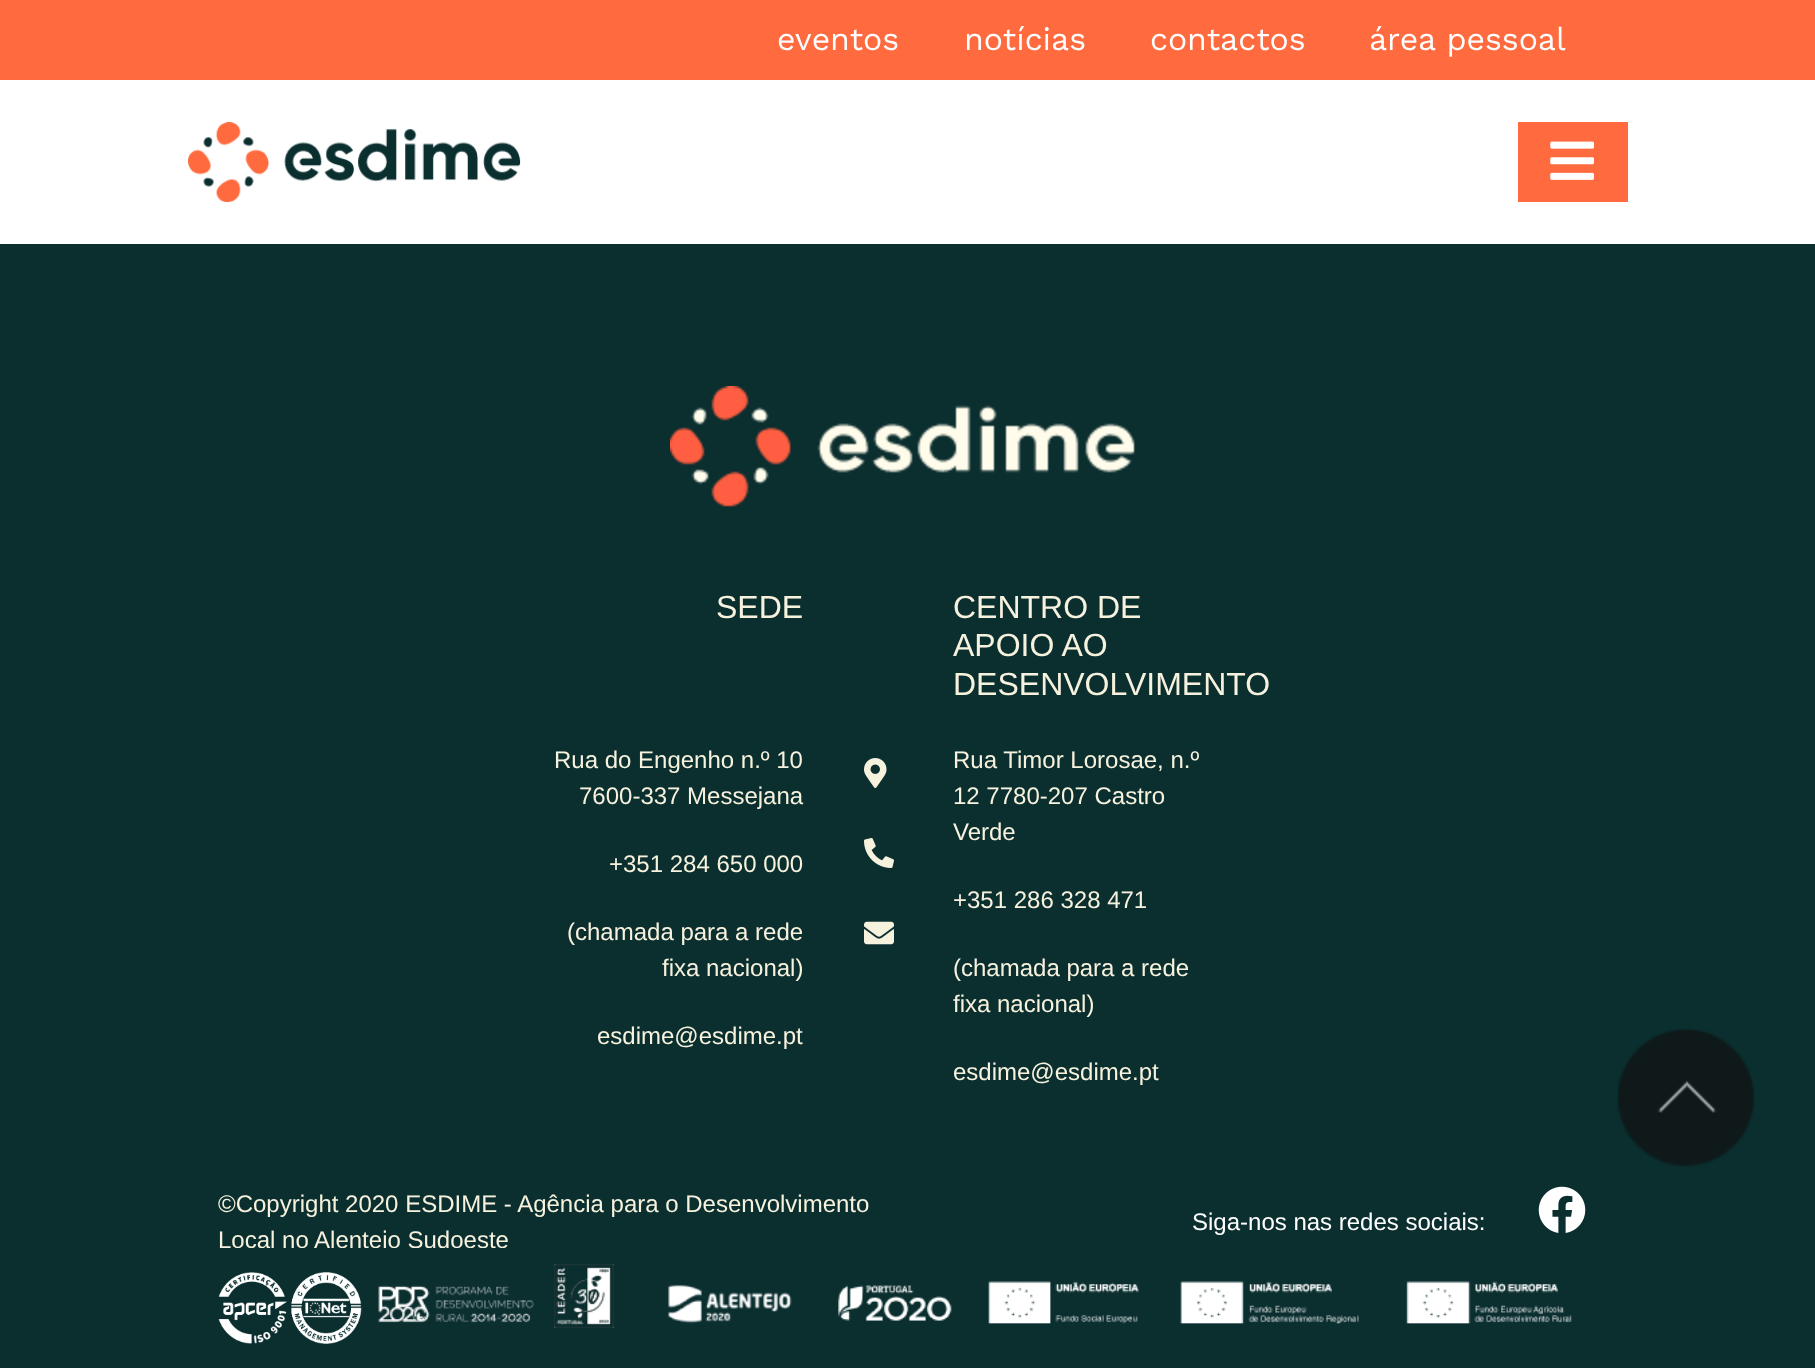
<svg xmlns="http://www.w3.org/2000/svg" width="1815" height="1368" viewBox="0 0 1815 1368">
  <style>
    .t1 { font: 32px Work Sans; fill: #fff; }
    .t2 { font: 32px Liberation Sans; fill: #f6f2de; }
    .t3 { font: 24px Liberation Sans; fill: #f6f2de; }
    .t4 { font: 24px Liberation Sans; fill: #fff; }
  </style>
  <rect width="100%" height="100%" fill="#0b2e2f"/>
  <rect x="0" y="0" width="1815" height="80" fill="#ff6a3e"/>
  <text x="777" y="50" class="t1">eventos</text>
  <text x="964" y="50" class="t1">notícias</text>
  <text x="1150" y="50" class="t1">contactos</text>
  <text x="1369" y="50" class="t1">área pessoal</text>
  <rect x="0" y="80" width="1815" height="164" fill="#fff"/>
  <image x="188" y="122" width="333" height="80" href="images/1.png"/>
  <rect x="1518" y="122" width="110" height="80" fill="#ff6a3e"/>
  <image x="1550" y="141" width="44" height="39" href="images/2.png"/>
  <image x="670" y="386" width="465" height="121" href="images/3.png"/>
  <text x="716" y="618" class="t2">SEDE</text>
  <text x="554" y="768" class="t3">Rua do Engenho n.º 10</text>
  <text x="579" y="804" class="t3">7600-337 Messejana</text>
  <text x="609" y="872" class="t3">+351 284 650 000</text>
  <text x="567" y="940" class="t3">(chamada para a rede</text>
  <text x="662" y="976" class="t3">fixa nacional)</text>
  <text x="597" y="1044" class="t3">esdime@esdime.pt</text>
  <image x="864" y="758" width="23" height="30" href="images/4.png"/>
  <image x="864" y="838" width="30" height="30" href="images/5.png"/>
  <image x="864" y="921" width="30" height="24" href="images/6.png"/>
  <text x="953" y="618" class="t2">CENTRO DE</text>
  <text x="953" y="656" class="t2">APOIO AO</text>
  <text x="953" y="695" class="t2">DESENVOLVIMENTO</text>
  <text x="953" y="768" class="t3">Rua Timor Lorosae, n.º</text>
  <text x="953" y="804" class="t3">12 7780-207 Castro</text>
  <text x="953" y="840" class="t3">Verde</text>
  <text x="953" y="908" class="t3">+351 286 328 471</text>
  <text x="953" y="976" class="t3">(chamada para a rede</text>
  <text x="953" y="1012" class="t3">fixa nacional)</text>
  <text x="953" y="1080" class="t3">esdime@esdime.pt</text>
  <text x="218" y="1212" class="t3">©Copyright 2020 ESDIME - Agência para o Desenvolvimento</text>
  <text x="218" y="1248" class="t3">Local no Alentejo Sudoeste</text>
  <text x="1192" y="1230" class="t4">Siga-nos nas redes sociais:</text>
  <image x="1538" y="1186" width="48" height="47" href="images/7.png"/>
  <rect x="236" y="1248" width="269" height="5" fill="#0b2e2f"/>
  <image x="218" y="1272" width="144" height="72" href="images/8.png"/>
  <image x="378" y="1285" width="156" height="38" href="images/9.png"/>
  <image x="554" y="1264" width="60" height="64" href="images/10.png"/>
  <image x="668" y="1284" width="124" height="40" href="images/11.png"/>
  <image x="838" y="1285" width="114" height="36" href="images/12.png"/>
  <image x="988" y="1281" width="151" height="43" href="images/13.png"/>
  <image x="1180" y="1281" width="179" height="43" href="images/14.png"/>
  <image x="1406" y="1281" width="166" height="43" href="images/15.png"/>
  <image x="1617" y="1028" width="138" height="139" href="images/16.png"/>
</svg>
